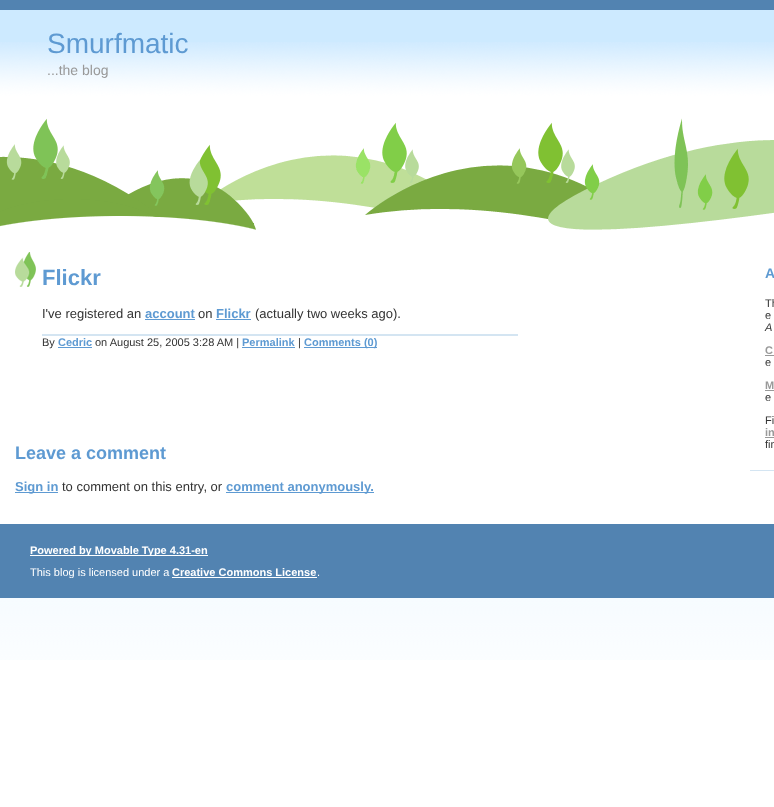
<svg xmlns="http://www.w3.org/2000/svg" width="774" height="807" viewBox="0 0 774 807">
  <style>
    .t1 { font: 28px Liberation Sans; fill: #5e9ad2; }
    .t2 { font: 14px Liberation Sans; fill: #999; }
    .t3 { font: bold 22px Liberation Sans; fill: #5e9ad2; }
    .t4 { font: 13px Liberation Sans; fill: #333; }
    .t5 { font: bold 13px Liberation Sans; fill: #5e9ad2; }
    .t6 { font: 11px Liberation Sans; fill: #333; }
    .t7 { font: bold 11px Liberation Sans; fill: #5e9ad2; }
    .t8 { font: bold 18px Liberation Sans; fill: #5e9ad2; }
    .t9 { font: bold 14px Liberation Sans; fill: #5e9ad2; }
    .t10 { font: italic 11px Liberation Sans; fill: #333; }
    .t11 { font: bold 11px Liberation Sans; fill: #999; }
    .t12 { font: bold 11px Liberation Sans; fill: #fff; }
    .t13 { font: 11px Liberation Sans; fill: #fff; }
  </style>
  <defs>
    <clipPath id="clip1"><rect x="15" y="544" width="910" height="12"/></clipPath>
    <clipPath id="clip2"><rect x="15" y="566" width="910" height="12"/></clipPath>
  </defs>
  <rect width="100%" height="100%" fill="#fff"/>
  <image x="0" y="598" width="774" height="62" href="images/1.png"/>
  <rect x="0" y="10" width="774" height="32" fill="#cdeaff"/>
  <image x="0" y="42" width="774" height="198" href="images/2.png"/>
  <rect x="0" y="0" width="774" height="10" fill="#5283b1"/>
  <text x="47" y="53" class="t1">Smurfmatic</text>
  <text x="47" y="75" class="t2">...the blog</text>
  <image x="15" y="252" width="21" height="35" href="images/3.png"/>
  <text x="42" y="285" class="t3">Flickr</text>
  <text x="42" y="318" class="t4">I've registered an</text>
  <text x="145" y="318" class="t5">account</text>
  <rect x="145" y="319" width="50" height="1" fill="#5e9ad2"/>
  <text x="198" y="318" class="t4">on</text>
  <text x="216" y="318" class="t5">Flickr</text>
  <rect x="216" y="319" width="35" height="1" fill="#5e9ad2"/>
  <text x="255" y="318" class="t4">(actually two weeks ago).</text>
  <rect x="42" y="334" width="476" height="2" fill="#d4e5f2"/>
  <text x="42" y="346" class="t6">By</text>
  <text x="58" y="346" class="t7">Cedric</text>
  <rect x="58" y="347" width="34" height="1" fill="#5e9ad2"/>
  <text x="95" y="346" class="t6">on August 25, 2005 3:28 AM |</text>
  <text x="242" y="346" class="t7">Permalink</text>
  <rect x="242" y="347" width="53" height="1" fill="#5e9ad2"/>
  <text x="298" y="346" class="t6">|</text>
  <rect x="304" y="347" width="73" height="1" fill="#5e9ad2"/>
  <text x="304" y="346" class="t7">Comments (0)</text>
  <text x="15" y="459" class="t8">Leave a comment</text>
  <rect x="15" y="492" width="43" height="1" fill="#5e9ad2"/>
  <text x="15" y="491" class="t5">Sign in</text>
  <text x="62" y="491" class="t4">to comment on this entry, or</text>
  <rect x="226" y="492" width="148" height="1" fill="#5e9ad2"/>
  <text x="226" y="491" class="t5">comment anonymously.</text>
  <rect x="750" y="470" width="24" height="1" fill="#d4e5f2"/>
  <text x="765" y="278" class="t9">A</text>
  <text x="765" y="307" class="t6">Th</text>
  <text x="765" y="319" class="t6">e</text>
  <text x="765" y="331" class="t10">A</text>
  <text x="765" y="354" class="t11">C</text>
  <rect x="765" y="355" width="9" height="1" fill="#999"/>
  <text x="765" y="366" class="t6">e</text>
  <text x="765" y="389" class="t11">M</text>
  <rect x="765" y="390" width="9" height="1" fill="#999"/>
  <text x="765" y="401" class="t6">e</text>
  <text x="765" y="424" class="t6">Fi</text>
  <text x="765" y="436" class="t11">in</text>
  <rect x="765" y="437" width="9" height="1" fill="#999"/>
  <text x="765" y="448" class="t6">fin</text>
  <rect x="0" y="524" width="774" height="74" fill="#5283b1"/>
  <rect x="30" y="555" width="178" height="1" fill="#fff"/>
  <g clip-path="url(#clip1)">
    <text x="30" y="554" class="t12">Powered by Movable Type 4.31-en</text>
  </g>
  <g clip-path="url(#clip2)">
    <text x="30" y="576" class="t13">This blog is licensed under a</text>
  </g>
  <text x="172" y="576" class="t12">Creative Commons License</text>
  <rect x="172" y="577" width="145" height="1" fill="#fff"/>
  <text x="317" y="576" class="t13">.</text>
</svg>
